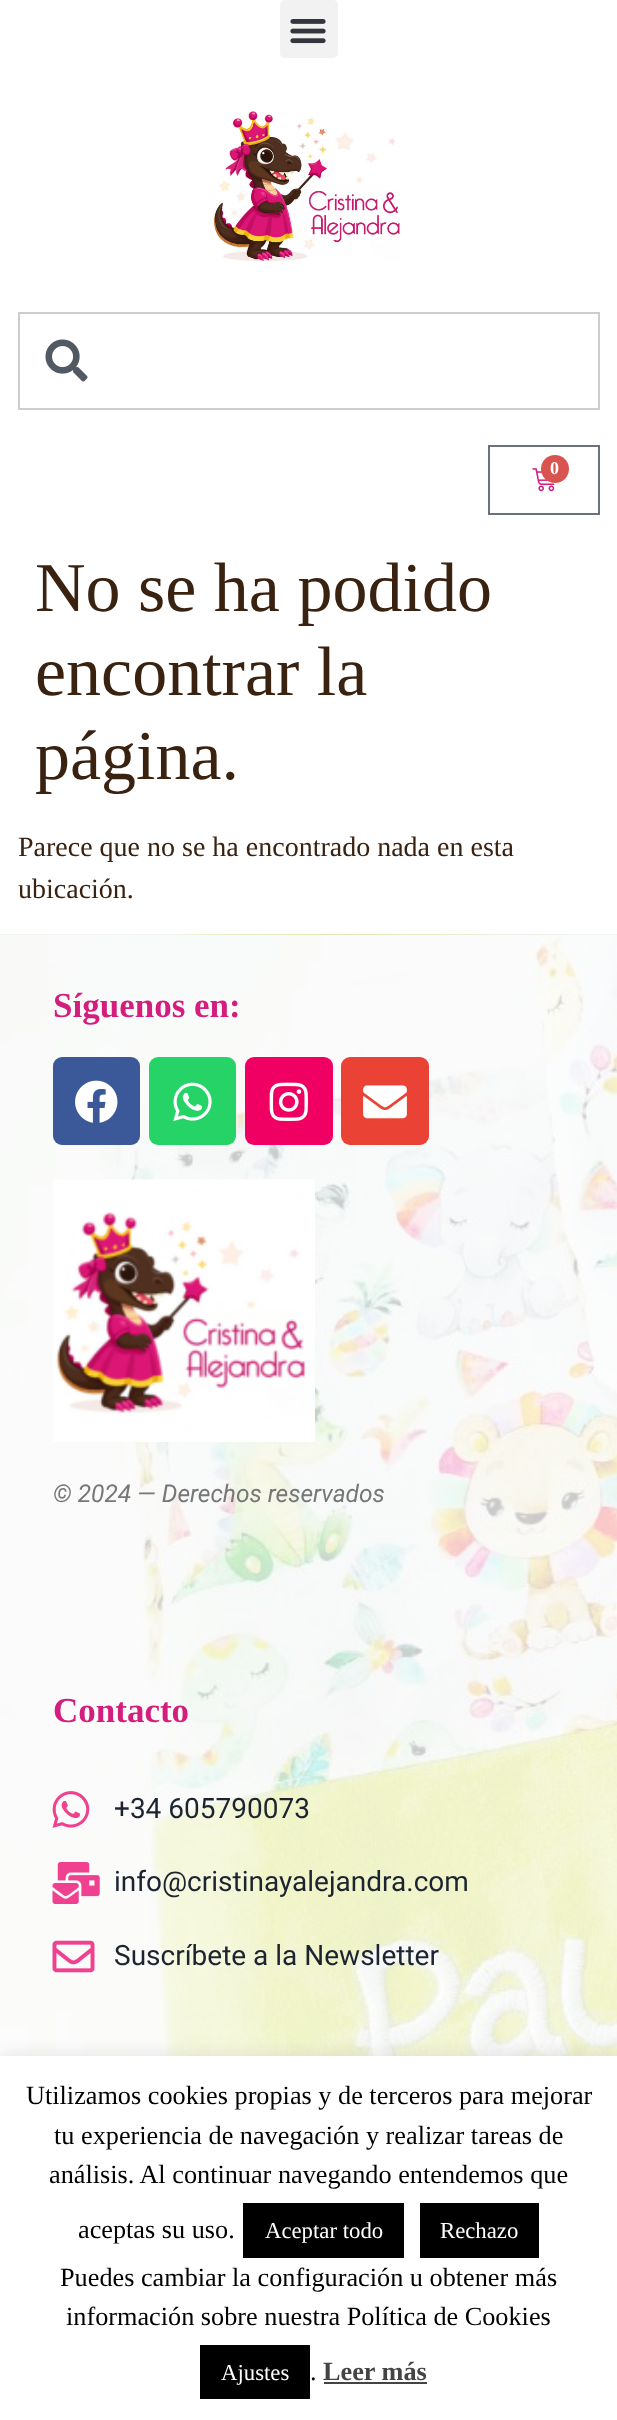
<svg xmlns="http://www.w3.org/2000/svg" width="617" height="2420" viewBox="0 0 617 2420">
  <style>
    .t1 { font: bold 18px Liberation Serif; fill: #fff; }
    .t2 { font: 70px Liberation Serif; fill: #3a2211; }
    .t3 { font: 28px Liberation Serif; fill: #3a2211; }
    .t4 { font: bold 35px Liberation Serif; fill: #d31e7e; }
    .t5 { font: italic 24.5px Roboto; fill: #777; }
    .t6 { font: 28px Roboto; fill: #1c2431; }
    .t7 { font: 26.25px Liberation Serif; fill: #000; }
    .t8 { font: 22.75px Liberation Serif; fill: #fff; }
    .t9 { font: bold 26.25px Liberation Serif; fill: #444; }
  </style>
  <rect width="100%" height="100%" fill="#fff"/>
  <rect x="280" y="0" width="58" height="58" rx="5" fill="#f2f2f2"/>
  <image x="290" y="19" width="36" height="25" href="images/1.png"/>
  <image x="213" y="110" width="187" height="152" href="images/2.png"/>
  <rect x="19" y="313" width="580" height="96" fill="none" stroke="#cdcdcd" stroke-width="2"/>
  <image x="45" y="339" width="43" height="43" href="images/3.png"/>
  <rect x="489" y="446" width="110" height="68" fill="none" stroke="#69727d" stroke-width="2"/>
  <image x="532" y="468" width="23" height="24" href="images/4.png"/>
  <circle cx="555" cy="469" r="14" fill="#d9534f"/>
  <text x="550" y="474" class="t1">0</text>
  <text x="35" y="611" class="t2">No se ha podido</text>
  <text x="35" y="695" class="t2">encontrar la</text>
  <text x="35" y="779" class="t2">página.</text>
  <text x="18" y="856" class="t3">Parece que no se ha encontrado nada en esta</text>
  <text x="18" y="898" class="t3">ubicación.</text>
  <image x="0" y="934" width="617" height="1122" href="images/5.png"/>
  <text x="53" y="1017" class="t4">Síguenos en:</text>
  <rect x="53" y="1057" width="87" height="88" rx="9" fill="#3b5998"/>
  <image x="75" y="1080" width="43" height="43" href="images/6.png"/>
  <rect x="149" y="1057" width="87" height="88" rx="9" fill="#25d366"/>
  <image x="173" y="1082" width="39" height="39" href="images/7.png"/>
  <rect x="245" y="1057" width="88" height="88" rx="9" fill="#f10064"/>
  <image x="269" y="1082" width="39" height="39" href="images/8.png"/>
  <rect x="341" y="1057" width="88" height="88" rx="9" fill="#ea4335"/>
  <image x="363" y="1085" width="44" height="34" href="images/9.png"/>
  <image x="53" y="1179" width="262" height="263" href="images/10.png"/>
  <text x="53" y="1502" class="t5">© 2024 — Derechos reservados</text>
  <text x="53" y="1722" class="t4">Contacto</text>
  <image x="52" y="1791" width="38" height="37" href="images/11.png"/>
  <text x="114" y="1818" class="t6">+34 605790073</text>
  <image x="52" y="1862" width="48" height="42" href="images/12.png"/>
  <text x="114" y="1891" class="t6">info@cristinayalejandra.com</text>
  <image x="52" y="1940" width="43" height="33" href="images/13.png"/>
  <text x="114" y="1965" class="t6">Suscríbete a la Newsletter</text>
  <rect x="0" y="2055" width="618" height="364" fill="#acabab4d" filter="blur(9px)"/>
  <rect x="0" y="2056" width="617" height="364" fill="#fff"/>
  <text x="26" y="2104" class="t7">Utilizamos cookies propias y de terceros para mejorar</text>
  <text x="54" y="2144" class="t7">tu experiencia de navegación y realizar tareas de</text>
  <text x="49" y="2183" class="t7">análisis. Al continuar navegando entendemos que</text>
  <text x="78" y="2238" class="t7">aceptas su uso.</text>
  <rect x="243" y="2203" width="161" height="55" fill="#000"/>
  <text x="265" y="2238" class="t8">Aceptar todo</text>
  <rect x="420" y="2203" width="119" height="55" fill="#000"/>
  <text x="440" y="2238" class="t8">Rechazo</text>
  <text x="60" y="2286" class="t7">Puedes cambiar la configuración u obtener más</text>
  <text x="66" y="2325" class="t7">información sobre nuestra Política de Cookies</text>
  <rect x="200" y="2345" width="110" height="54" fill="#000"/>
  <text x="221" y="2380" class="t8">Ajustes</text>
  <text x="310" y="2380" class="t7">.</text>
  <text x="323" y="2380" class="t9">Leer más</text>
  <rect x="324" y="2382" width="103" height="2" fill="#444"/>
</svg>
